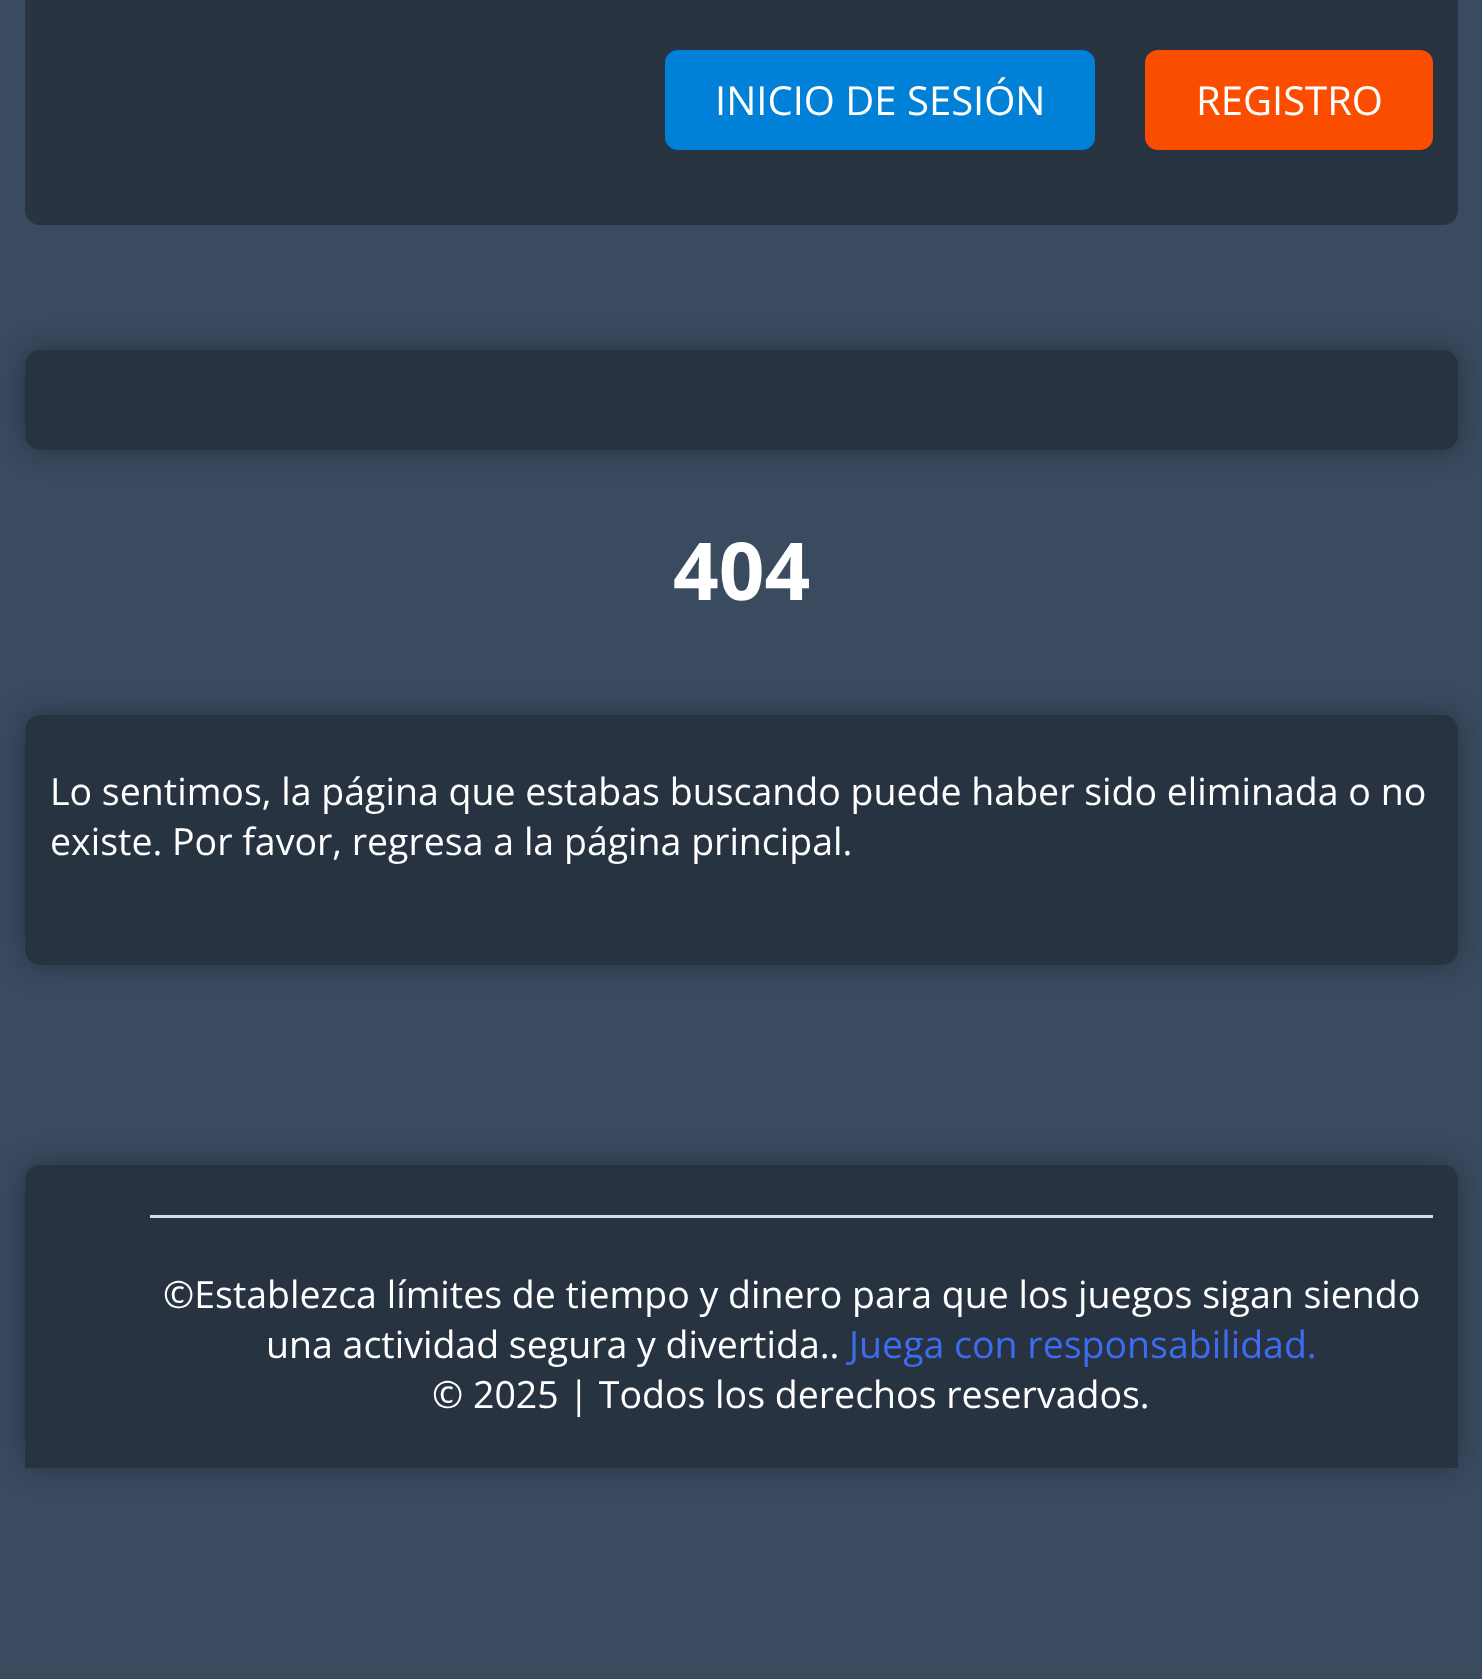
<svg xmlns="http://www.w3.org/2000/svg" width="1482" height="1679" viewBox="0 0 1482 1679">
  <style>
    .t1 { font: 40px Open Sans; fill: #fff; }
    .t2 { font: bold 80px Open Sans; fill: #fff; }
    .t3 { font: 37.5px Open Sans; fill: #fff; }
    .t4 { font: 37.5px Open Sans; fill: #3c6df0; }
  </style>
  <defs>
    <clipPath id="clip1"><path d="M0 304H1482V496H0ZM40 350H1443C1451.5 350 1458 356.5 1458 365V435C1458 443.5 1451.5 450 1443 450H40C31.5 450 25 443.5 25 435V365C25 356.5 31.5 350 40 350Z" clip-rule="evenodd"/></clipPath>
    <clipPath id="clip2"><path d="M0 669H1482V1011H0ZM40 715H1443C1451.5 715 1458 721.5 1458 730V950C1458 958.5 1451.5 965 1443 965H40C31.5 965 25 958.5 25 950V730C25 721.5 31.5 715 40 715Z" clip-rule="evenodd"/></clipPath>
    <clipPath id="clip3"><path d="M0 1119H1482V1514H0ZM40 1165H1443C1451.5 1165 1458 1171.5 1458 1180V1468H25V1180C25 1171.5 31.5 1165 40 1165Z" clip-rule="evenodd"/></clipPath>
  </defs>
  <rect width="100%" height="100%" fill="#3a4a5f"/>
  <path d="M25 0H1458V210C1458 218.5 1451.5 225 1443 225H40C31.5 225 25 218.5 25 210Z" fill="#293443"/>
  <rect x="665" y="50" width="430" height="100" rx="13" fill="#0080d6"/>
  <text x="715" y="115" class="t1">INICIO DE SESIÓN</text>
  <rect x="1145" y="50" width="288" height="100" rx="13" fill="#fb4d00"/>
  <text x="1196" y="115" class="t1">REGISTRO</text>
  <g clip-path="url(#clip1)">
    <rect x="25" y="350" width="1433" height="100" rx="15" fill="#00000052" filter="blur(15px)"/>
  </g>
  <rect x="25" y="350" width="1433" height="100" rx="15" fill="#0000004d"/>
  <text x="673" y="600" class="t2">404</text>
  <g clip-path="url(#clip2)">
    <rect x="25" y="715" width="1433" height="250" rx="15" fill="#00000052" filter="blur(15px)"/>
  </g>
  <rect x="25" y="715" width="1433" height="250" rx="15" fill="#0000004d"/>
  <text x="50" y="805" class="t3">Lo sentimos, la página que estabas buscando puede haber sido eliminada o no</text>
  <text x="50" y="855" class="t3">existe. Por favor, regresa a la página principal.</text>
  <g clip-path="url(#clip3)">
    <rect x="25" y="1165" width="1433" height="303" rx="15" fill="#00000052" filter="blur(15px)"/>
  </g>
  <path d="M40 1165H1443C1451.5 1165 1458 1171.5 1458 1180V1468H25V1180C25 1171.5 31.5 1165 40 1165Z" fill="#0000004d"/>
  <rect x="150" y="1215" width="1283" height="3" fill="#d8dbe0"/>
  <text x="163" y="1308" class="t3">©Establezca límites de tiempo y dinero para que los juegos sigan siendo</text>
  <text x="266" y="1358" class="t3">una actividad segura y divertida..</text>
  <text x="849" y="1358" class="t4">Juega con responsabilidad.</text>
  <text x="432" y="1408" class="t3">© 2025 | Todos los derechos reservados.</text>
</svg>
